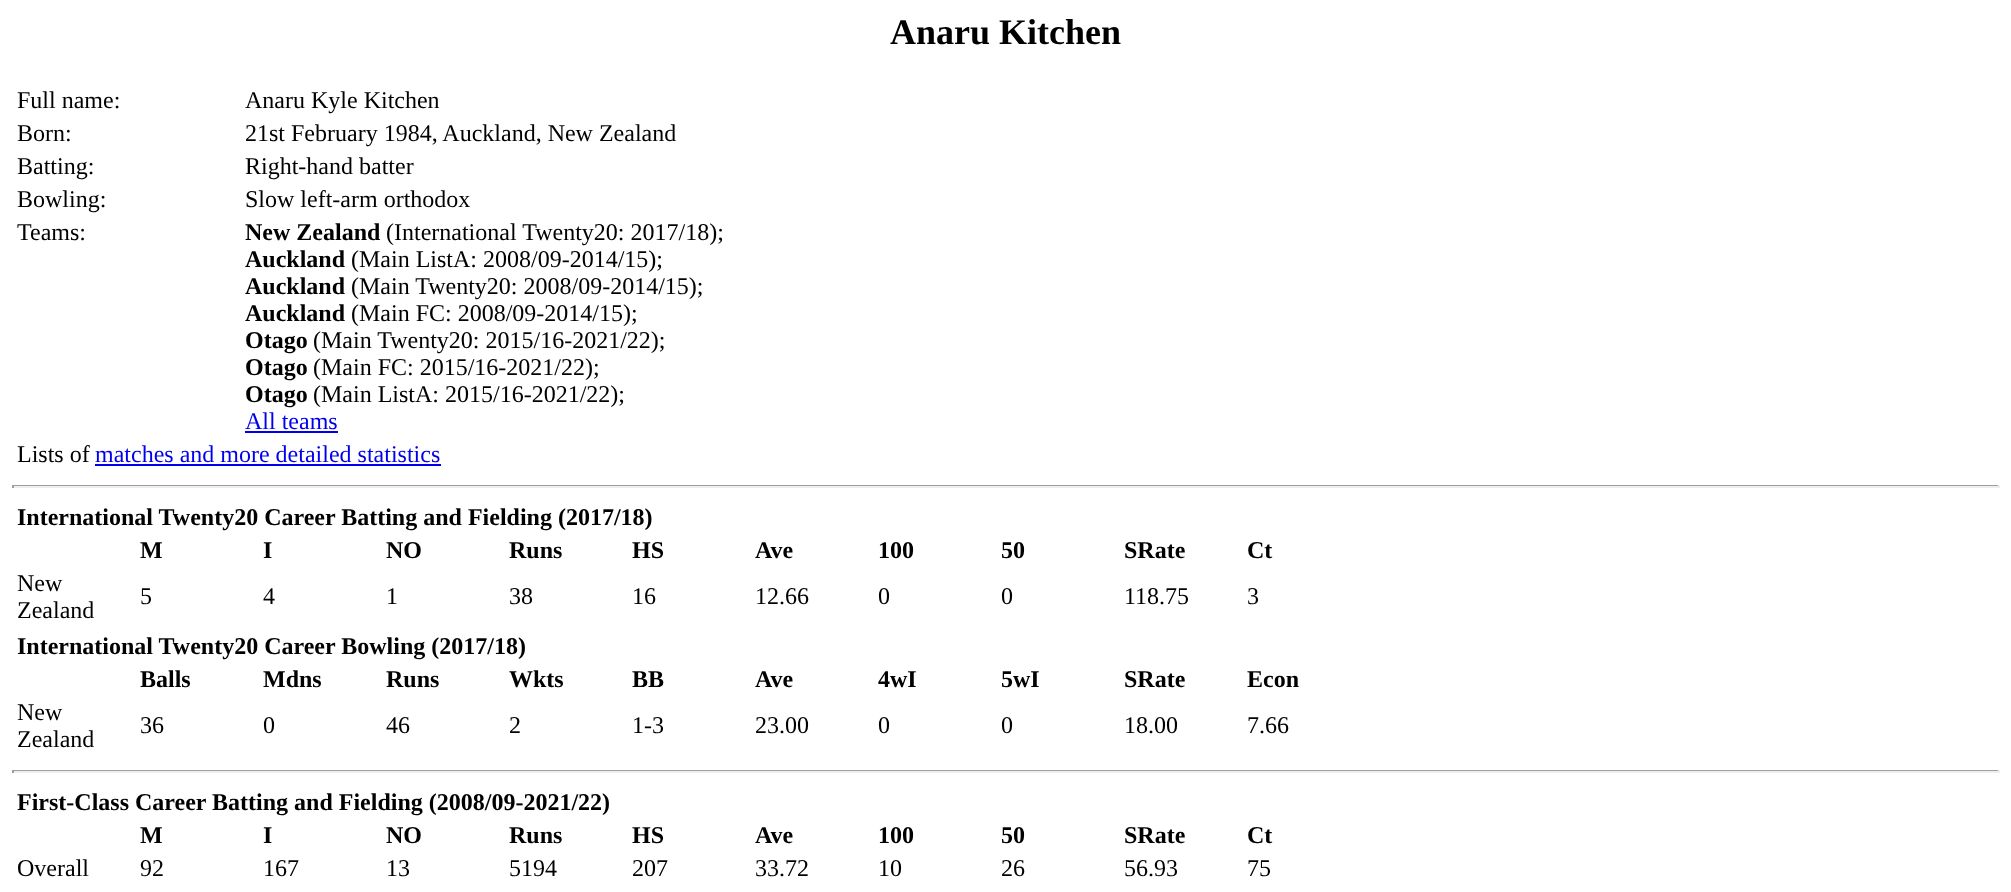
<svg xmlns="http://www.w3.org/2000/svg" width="2011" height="892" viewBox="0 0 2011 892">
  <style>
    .t1 { font: bold 36px Liberation Serif; fill: #000; }
    .t2 { font: 24px Liberation Serif; fill: #000; }
    .t3 { font: bold 24px Liberation Serif; fill: #000; }
    .t4 { font: 24px Liberation Serif; fill: #00e; }
  </style>
  <rect width="100%" height="100%" fill="#fff"/>
  <text x="890" y="44" class="t1">Anaru Kitchen</text>
  <text x="17" y="108" class="t2">Full name:</text>
  <text x="245" y="108" class="t2">Anaru Kyle Kitchen</text>
  <text x="17" y="141" class="t2">Born:</text>
  <text x="245" y="141" class="t2">21st February 1984, Auckland, New Zealand</text>
  <text x="17" y="174" class="t2">Batting:</text>
  <text x="245" y="174" class="t2">Right-hand batter</text>
  <text x="17" y="207" class="t2">Bowling:</text>
  <text x="245" y="207" class="t2">Slow left-arm orthodox</text>
  <text x="17" y="240" class="t2">Teams:</text>
  <text x="245" y="240" class="t3">New Zealand</text>
  <text x="386" y="240" class="t2">(International Twenty20: 2017/18);</text>
  <text x="245" y="267" class="t3">Auckland</text>
  <text x="351" y="267" class="t2">(Main ListA: 2008/09-2014/15);</text>
  <text x="245" y="294" class="t3">Auckland</text>
  <text x="351" y="294" class="t2">(Main Twenty20: 2008/09-2014/15);</text>
  <text x="245" y="321" class="t3">Auckland</text>
  <text x="351" y="321" class="t2">(Main FC: 2008/09-2014/15);</text>
  <text x="245" y="348" class="t3">Otago</text>
  <text x="313" y="348" class="t2">(Main Twenty20: 2015/16-2021/22);</text>
  <text x="245" y="375" class="t3">Otago</text>
  <text x="313" y="375" class="t2">(Main FC: 2015/16-2021/22);</text>
  <text x="245" y="402" class="t3">Otago</text>
  <text x="313" y="402" class="t2">(Main ListA: 2015/16-2021/22);</text>
  <text x="245" y="429" class="t4">All teams</text>
  <rect x="245" y="431" width="93" height="2" fill="#00e"/>
  <text x="17" y="462" class="t2">Lists of</text>
  <text x="95" y="462" class="t4">matches and more detailed statistics</text>
  <rect x="95" y="464" width="346" height="2" fill="#00e"/>
  <rect x="12" y="485" width="1988" height="1" fill="#9f9f9f"/>
  <rect x="1998" y="485" width="2" height="3" fill="#eee"/>
  <rect x="12" y="486" width="1988" height="2" fill="#eee"/>
  <rect x="12" y="485" width="2" height="3" fill="#9f9f9f"/>
  <text x="17" y="525" class="t3">International Twenty20 Career Batting and Fielding (2017/18)</text>
  <text x="140" y="558" class="t3">M</text>
  <text x="263" y="558" class="t3">I</text>
  <text x="386" y="558" class="t3">NO</text>
  <text x="509" y="558" class="t3">Runs</text>
  <text x="632" y="558" class="t3">HS</text>
  <text x="755" y="558" class="t3">Ave</text>
  <text x="878" y="558" class="t3">100</text>
  <text x="1001" y="558" class="t3">50</text>
  <text x="1124" y="558" class="t3">SRate</text>
  <text x="1247" y="558" class="t3">Ct</text>
  <text x="17" y="591" class="t2">New</text>
  <text x="17" y="618" class="t2">Zealand</text>
  <text x="140" y="604" class="t2">5</text>
  <text x="263" y="604" class="t2">4</text>
  <text x="386" y="604" class="t2">1</text>
  <text x="509" y="604" class="t2">38</text>
  <text x="632" y="604" class="t2">16</text>
  <text x="755" y="604" class="t2">12.66</text>
  <text x="878" y="604" class="t2">0</text>
  <text x="1001" y="604" class="t2">0</text>
  <text x="1124" y="604" class="t2">118.75</text>
  <text x="1247" y="604" class="t2">3</text>
  <text x="17" y="654" class="t3">International Twenty20 Career Bowling (2017/18)</text>
  <text x="140" y="687" class="t3">Balls</text>
  <text x="263" y="687" class="t3">Mdns</text>
  <text x="386" y="687" class="t3">Runs</text>
  <text x="509" y="687" class="t3">Wkts</text>
  <text x="632" y="687" class="t3">BB</text>
  <text x="755" y="687" class="t3">Ave</text>
  <text x="878" y="687" class="t3">4wI</text>
  <text x="1001" y="687" class="t3">5wI</text>
  <text x="1124" y="687" class="t3">SRate</text>
  <text x="1247" y="687" class="t3">Econ</text>
  <text x="17" y="720" class="t2">New</text>
  <text x="17" y="747" class="t2">Zealand</text>
  <text x="140" y="733" class="t2">36</text>
  <text x="263" y="733" class="t2">0</text>
  <text x="386" y="733" class="t2">46</text>
  <text x="509" y="733" class="t2">2</text>
  <text x="632" y="733" class="t2">1-3</text>
  <text x="755" y="733" class="t2">23.00</text>
  <text x="878" y="733" class="t2">0</text>
  <text x="1001" y="733" class="t2">0</text>
  <text x="1124" y="733" class="t2">18.00</text>
  <text x="1247" y="733" class="t2">7.66</text>
  <rect x="12" y="770" width="1988" height="1" fill="#9f9f9f"/>
  <rect x="1998" y="770" width="2" height="3" fill="#eee"/>
  <rect x="12" y="771" width="1988" height="2" fill="#eee"/>
  <rect x="12" y="770" width="2" height="3" fill="#9f9f9f"/>
  <text x="17" y="810" class="t3">First-Class Career Batting and Fielding (2008/09-2021/22)</text>
  <text x="140" y="843" class="t3">M</text>
  <text x="263" y="843" class="t3">I</text>
  <text x="386" y="843" class="t3">NO</text>
  <text x="509" y="843" class="t3">Runs</text>
  <text x="632" y="843" class="t3">HS</text>
  <text x="755" y="843" class="t3">Ave</text>
  <text x="878" y="843" class="t3">100</text>
  <text x="1001" y="843" class="t3">50</text>
  <text x="1124" y="843" class="t3">SRate</text>
  <text x="1247" y="843" class="t3">Ct</text>
  <text x="17" y="876" class="t2">Overall</text>
  <text x="140" y="876" class="t2">92</text>
  <text x="263" y="876" class="t2">167</text>
  <text x="386" y="876" class="t2">13</text>
  <text x="509" y="876" class="t2">5194</text>
  <text x="632" y="876" class="t2">207</text>
  <text x="755" y="876" class="t2">33.72</text>
  <text x="878" y="876" class="t2">10</text>
  <text x="1001" y="876" class="t2">26</text>
  <text x="1124" y="876" class="t2">56.93</text>
  <text x="1247" y="876" class="t2">75</text>
</svg>
